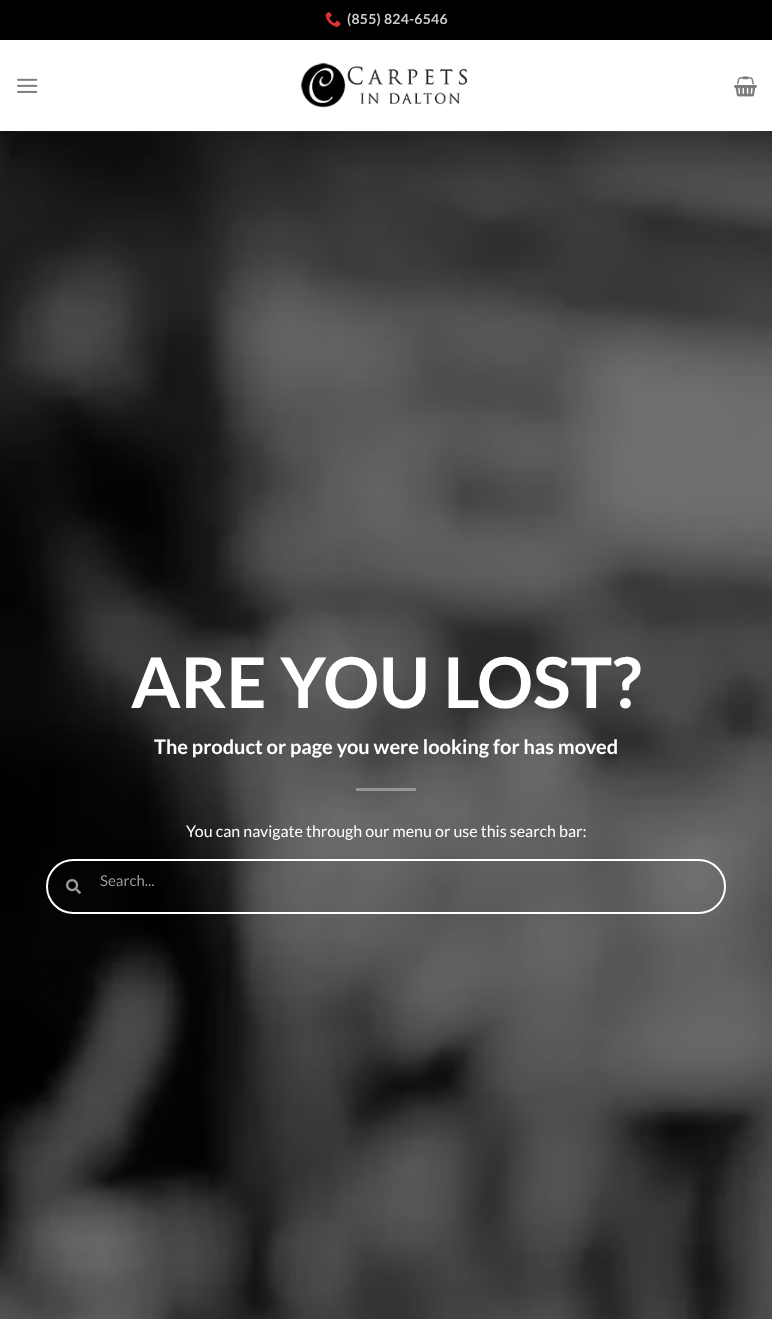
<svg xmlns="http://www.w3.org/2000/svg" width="772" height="1319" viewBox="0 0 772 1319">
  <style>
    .t1 { font: bold 14px Lato; letter-spacing: 0.25px; fill: #ccc; }
    .t2 { font: bold 70px Lato; fill: #fff; }
    .t3 { font: bold 20px Lato; fill: #fff; }
    .t4 { font: 16px Lato; fill: #fff; }
    .t5 { font: 15px Lato; fill: #9a9a9a; }
  </style>
  <rect width="100%" height="100%" fill="#fff"/>
  <rect x="0" y="0" width="772" height="40" fill="#000"/>
  <image x="325" y="12" width="16" height="15" href="images/1.png"/>
  <text x="347" y="24" class="t1">(855) 824-6546</text>
  <image x="17" y="78" width="21" height="15" href="images/2.png"/>
  <image x="300" y="63" width="167" height="45" href="images/3.png"/>
  <image x="734" y="76" width="23" height="21" href="images/4.png"/>
  <image x="0" y="131" width="772" height="1188" href="images/5.png"/>
  <rect x="15" y="131" width="742" height="1" fill="#7777771a"/>
  <text x="131" y="708" class="t2">ARE YOU LOST?</text>
  <text x="154" y="754" class="t3">The product or page you were looking for has moved</text>
  <rect x="356" y="788" width="60" height="3" fill="#ffffff59"/>
  <text x="186" y="837" class="t4">You can navigate through our menu or use this search bar:</text>
  <rect x="47" y="860" width="678" height="53" rx="26.5" fill="none" stroke="#fff" stroke-width="2"/>
  <image x="66" y="879" width="15" height="15" href="images/6.png"/>
  <text x="100" y="886" class="t5">Search...</text>
</svg>
